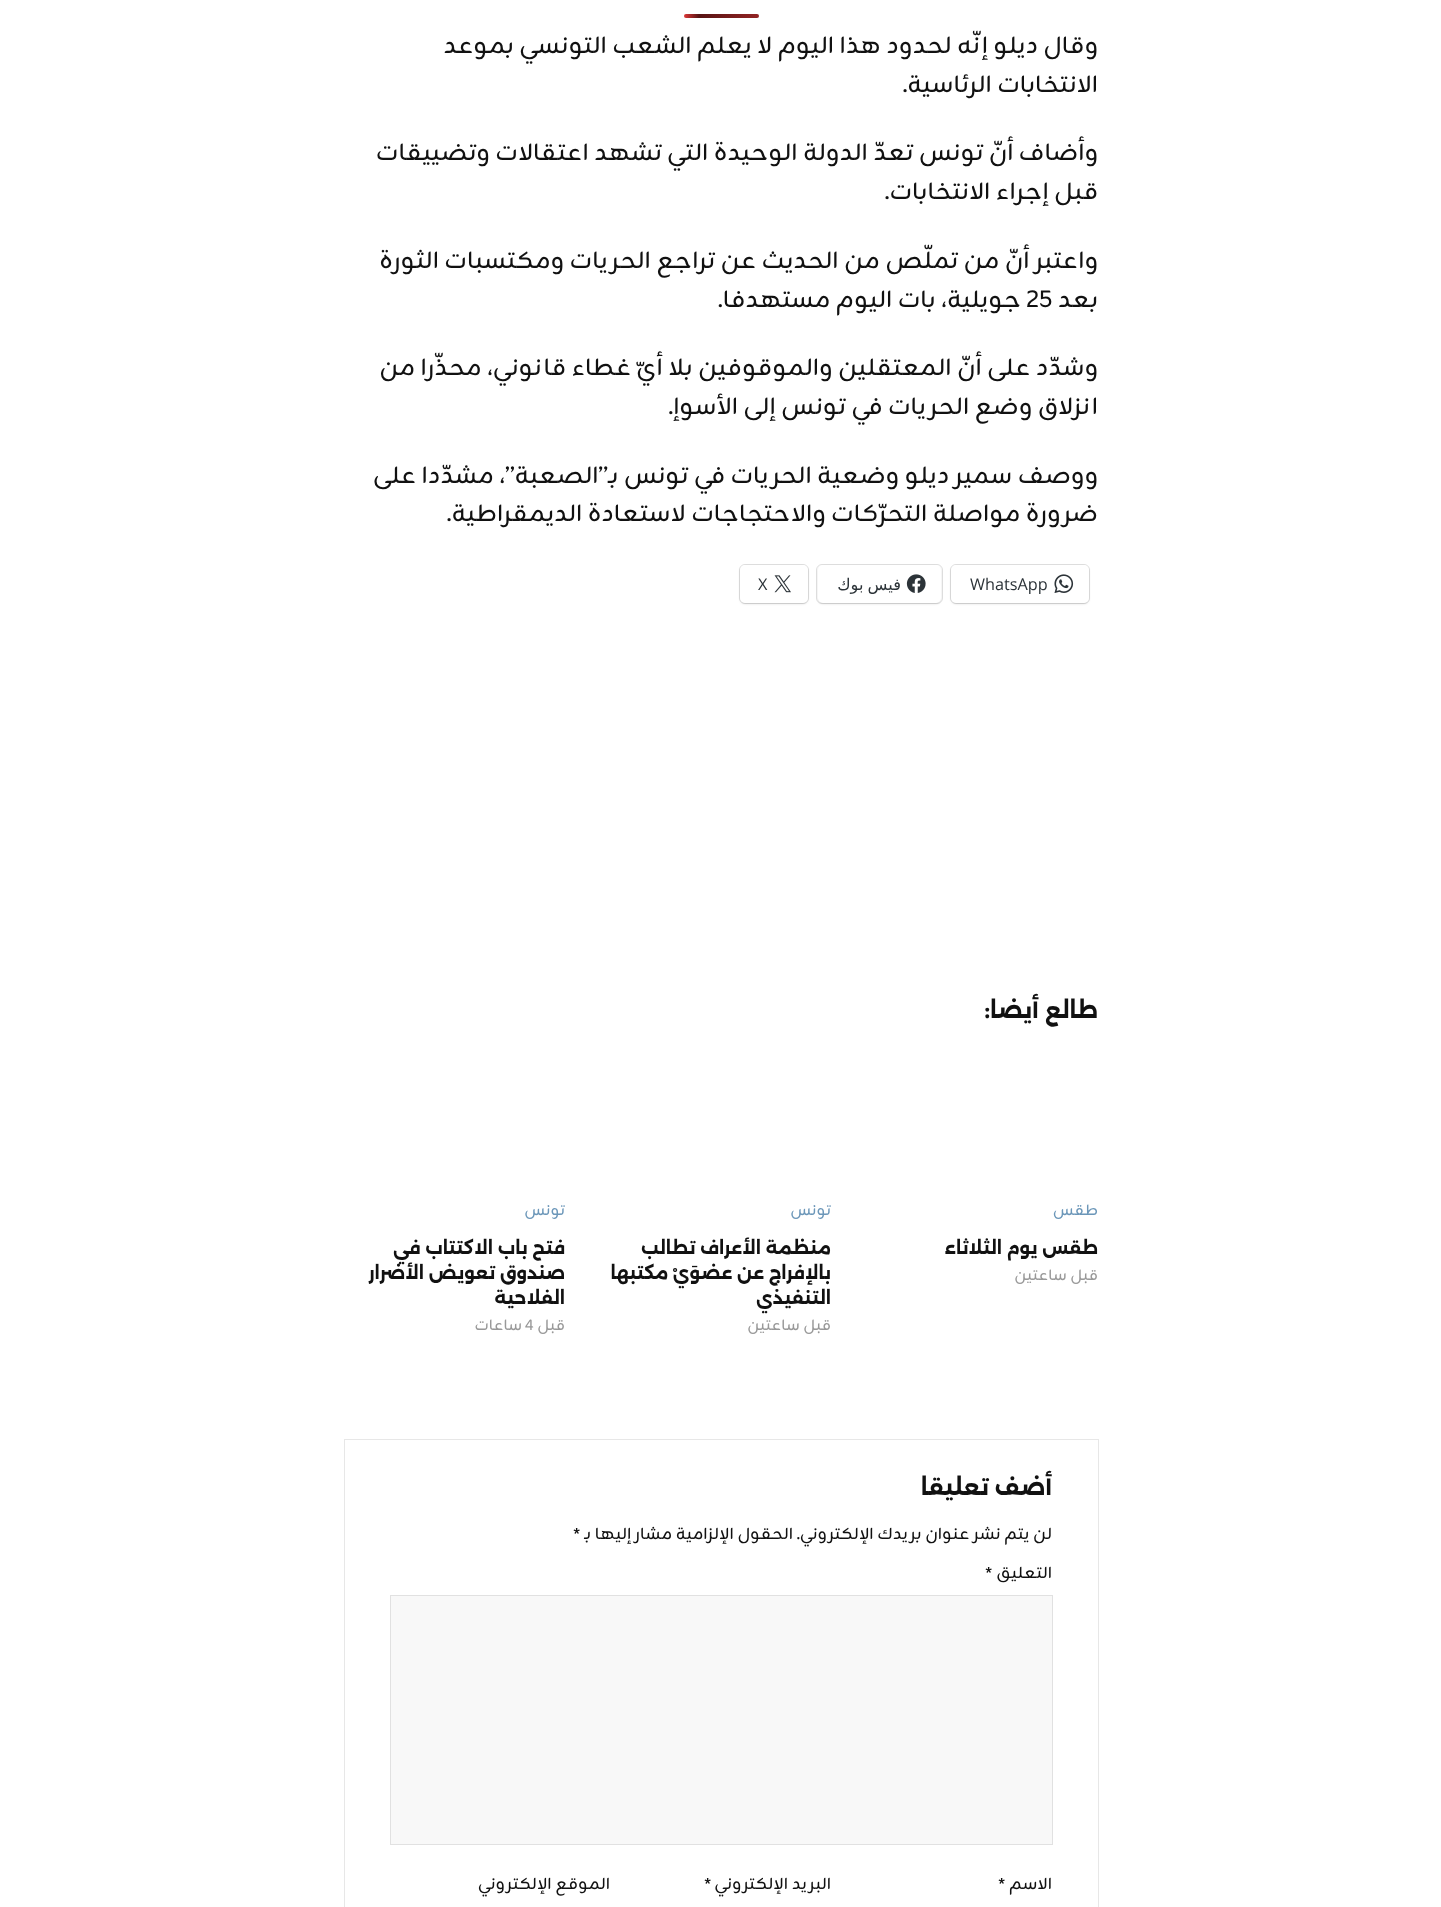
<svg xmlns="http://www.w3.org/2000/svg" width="1441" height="1907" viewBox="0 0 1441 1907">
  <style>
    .t1 { font: 23.75px Zain; direction: rtl; fill: #111; }
    .t2 { font: 23.75px Zain; fill: #111; }
    .t3 { font: 16.25px Open Sans; fill: #2c3338; }
    .t4 { font: 16.25px DejaVu Sans; direction: rtl; fill: #2c3338; }
    .t5 { font: bold 22.5px Alexandria; direction: rtl; fill: #111; }
    .t6 { font: 15px Zain; direction: rtl; fill: #6c97b9; }
    .t7 { font: bold 17.5px Alexandria; direction: rtl; fill: #111; }
    .t8 { font: 15px Zain; direction: rtl; fill: #999; }
    .t9 { font: 15px Zain; fill: #999; }
    .t10 { font: 16.25px Zain; direction: rtl; fill: #111; }
    .t11 { font: 16.25px Zain; fill: #111; }
  </style>
  <defs>
    <linearGradient id="g1" gradientUnits="userSpaceOnUse" x1="684" y1="16" x2="834" y2="16"><stop offset="0" stop-color="#dd3737"/><stop offset="0.1" stop-color="#571313"/><stop offset="1" stop-color="#dd3737"/></linearGradient>
  </defs>
  <rect width="100%" height="100%" fill="#fff"/>
  <rect x="684" y="14" width="75" height="4" rx="2" fill="url(#g1)"/>
  <text x="1098" y="53" class="t1">وقال ديلو إنّه لحدود هذا اليوم لا يعلم الشعب التونسي بموعد</text>
  <text x="1098" y="92" class="t1">الانتخابات الرئاسية.</text>
  <text x="1098" y="160" class="t1">وأضاف أنّ تونس تعدّ الدولة الوحيدة التي تشهد اعتقالات وتضييقات</text>
  <text x="1098" y="199" class="t1">قبل إجراء الانتخابات.</text>
  <text x="1098" y="268" class="t1">واعتبر أنّ من تملّص من الحديث عن تراجع الحريات ومكتسبات الثورة</text>
  <text x="1098" y="307" class="t1">بعد</text>
  <text x="1026" y="307" class="t2">25</text>
  <text x="1021" y="307" class="t1">جويلية، بات اليوم مستهدفا.</text>
  <text x="1098" y="375" class="t1">وشدّد على أنّ المعتقلين والموقوفين بلا أيّ غطاء قانوني، محذّرا من</text>
  <text x="1098" y="414" class="t1">انزلاق وضع الحريات في تونس إلى الأسوإ.</text>
  <text x="1098" y="483" class="t1">ووصف سمير ديلو وضعية الحريات في تونس بـ”الصعبة”، مشدّدا على</text>
  <text x="1098" y="521" class="t1">ضرورة مواصلة التحرّكات والاحتجاجات لاستعادة الديمقراطية.</text>
  <rect x="950.5" y="564.5" width="139" height="39" rx="5.5" fill="none" stroke="#e0e0e0"/>
  <rect x="951" y="566" width="138" height="38" rx="5" fill="#0000001f" filter="blur(1px)"/>
  <rect x="951" y="565" width="138" height="38" rx="5" fill="#fff"/>
  <image x="1054" y="574" width="20" height="19" href="images/1.png"/>
  <text x="970" y="590" class="t3">WhatsApp</text>
  <rect x="816.5" y="564.5" width="126" height="39" rx="5.5" fill="none" stroke="#e0e0e0"/>
  <rect x="818" y="566" width="123" height="38" rx="5" fill="#0000001f" filter="blur(1px)"/>
  <rect x="818" y="565" width="123" height="38" rx="5" fill="#fff"/>
  <image x="906" y="574" width="20" height="19" href="images/2.png"/>
  <text x="901" y="590" word-spacing="-1" class="t4">فيس بوك</text>
  <rect x="739.5" y="564.5" width="69" height="39" rx="5.5" fill="none" stroke="#e0e0e0"/>
  <rect x="740" y="566" width="68" height="38" rx="5" fill="#0000001f" filter="blur(1px)"/>
  <rect x="740" y="565" width="68" height="38" rx="5" fill="#fff"/>
  <image x="774" y="575" width="17" height="18" href="images/3.png"/>
  <text x="758" y="590" class="t3">X</text>
  <text x="1098" y="1018" class="t5">طالع أيضا:</text>
  <text x="1098" y="1215" class="t6">طقس</text>
  <text x="1098" y="1254" class="t7">طقس يوم الثلاثاء</text>
  <text x="1098" y="1280" class="t8">قبل ساعتين</text>
  <text x="831" y="1215" class="t6">تونس</text>
  <text x="831" y="1254" class="t7">منظمة الأعراف تطالب</text>
  <text x="831" y="1279" class="t7">بالإفراج عن عضوَيْ مكتبها</text>
  <text x="831" y="1304" class="t7">التنفيذي</text>
  <text x="831" y="1330" class="t8">قبل ساعتين</text>
  <text x="565" y="1215" class="t6">تونس</text>
  <text x="565" y="1254" class="t7">فتح باب الاكتتاب في</text>
  <text x="565" y="1279" class="t7">صندوق تعويض الأضرار</text>
  <text x="565" y="1304" class="t7">الفلاحية</text>
  <text x="565" y="1330" class="t8">قبل</text>
  <text x="525" y="1330" class="t9">4</text>
  <text x="522" y="1330" class="t8">ساعات</text>
  <rect x="344.5" y="1439.5" width="754" height="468" fill="none" stroke="#e7e7e7"/>
  <text x="1052" y="1495" class="t5">أضف تعليقا</text>
  <text x="1052" y="1539" class="t10">لن يتم نشر عنوان بريدك الإلكتروني.</text>
  <text x="793" y="1539" class="t10">الحقول الإلزامية مشار إليها بـ</text>
  <text x="573" y="1539" class="t11">*</text>
  <text x="1052" y="1578" class="t10">التعليق</text>
  <text x="985" y="1578" class="t11">*</text>
  <rect x="390.5" y="1595.5" width="662" height="249" fill="#f8f8f8" stroke="#e1e1e1"/>
  <text x="1052" y="1889" class="t10">الاسم</text>
  <text x="998" y="1889" class="t11">*</text>
  <text x="831" y="1889" class="t10">البريد الإلكتروني</text>
  <text x="704" y="1889" class="t11">*</text>
  <text x="610" y="1889" class="t10">الموقع الإلكتروني</text>
</svg>
